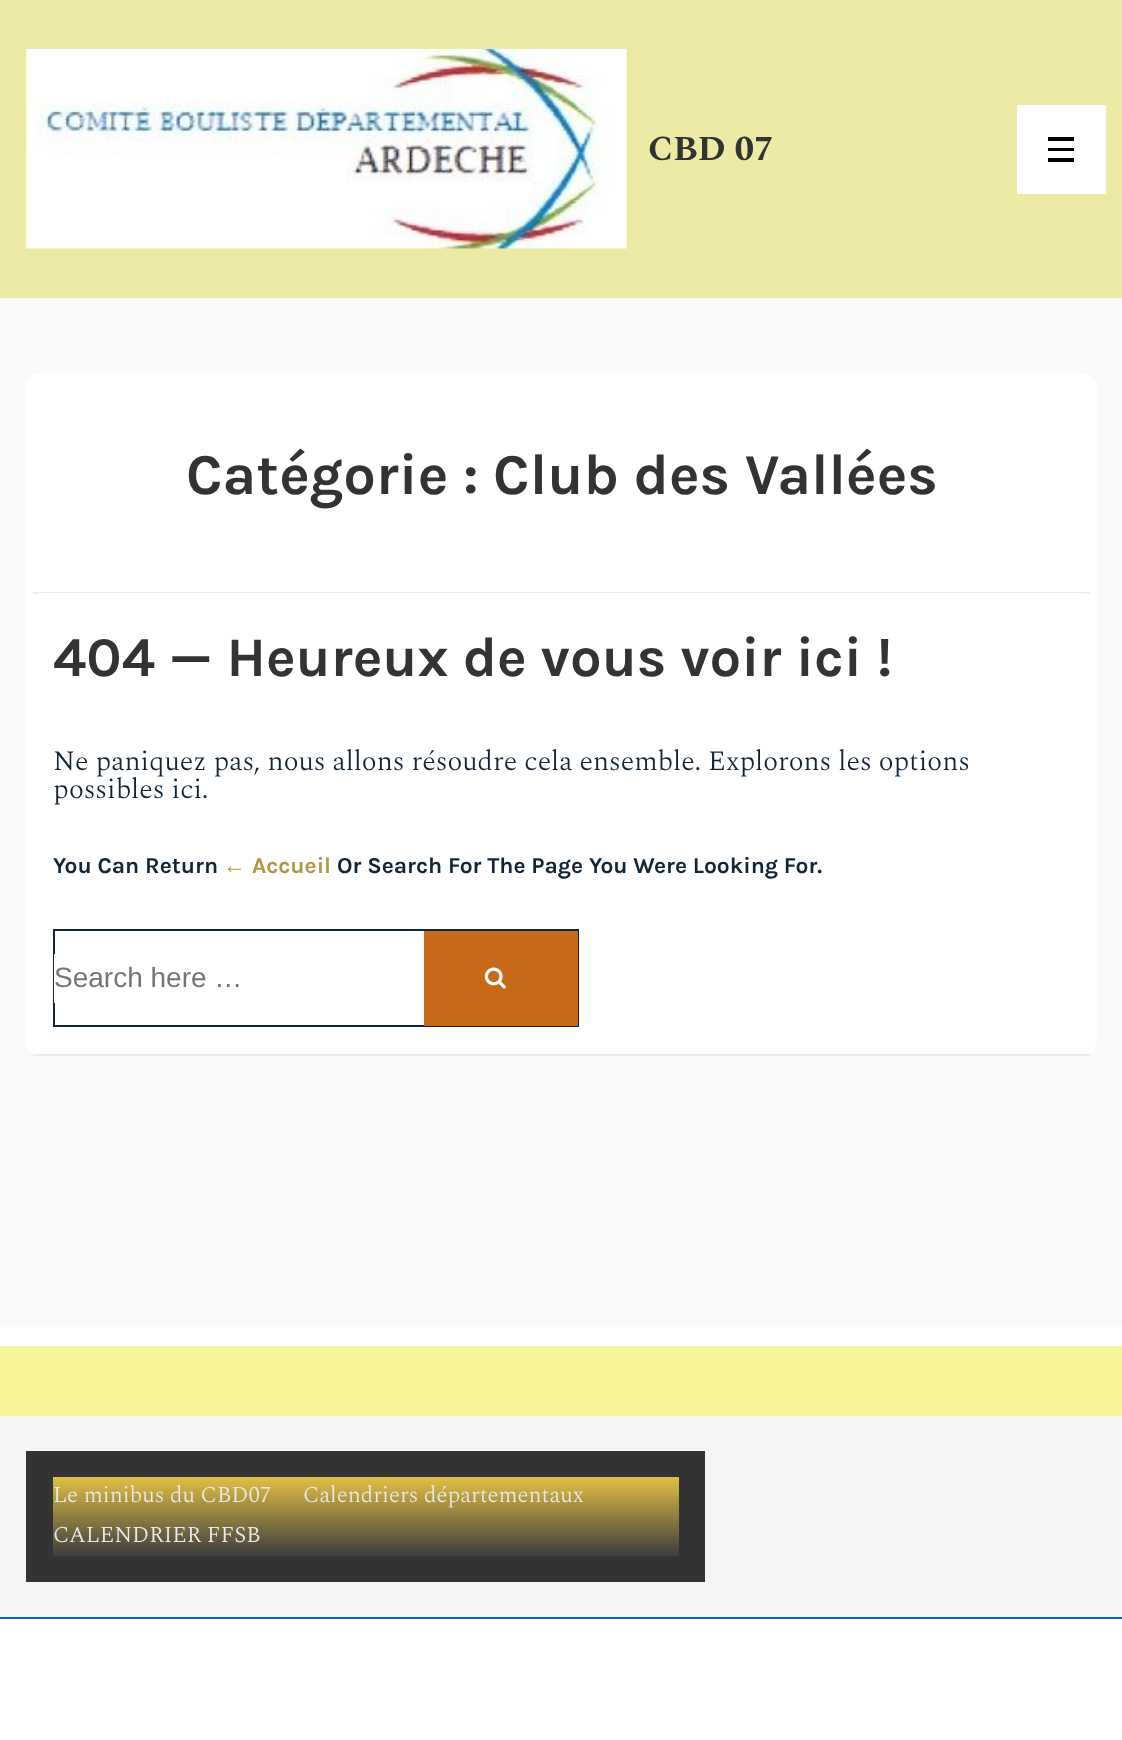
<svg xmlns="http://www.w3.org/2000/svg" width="1122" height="1740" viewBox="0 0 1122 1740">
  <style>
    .t1 { font: bold 35px Spectral; fill: #333; }
    .t2 { font: bold 57.75px Karla; fill: #333; }
    .t3 { font: bold 56px Karla; fill: #333; }
    .t4 { font: 300 28px Spectral; fill: #122538; }
    .t5 { font: bold 22.75px Karla; fill: #122538; }
    .t6 { font: bold 22.75px Liberation Serif; fill: #b09841; }
    .t7 { font: bold 22.75px Karla; fill: #b09841; }
    .t8 { font: 28px Liberation Sans; fill: #757575; }
    .t9 { font: 300 22.75px Spectral; fill: #eaeaea; }
  </style>
  <defs>
    <linearGradient id="g1" gradientUnits="userSpaceOnUse" x1="366" y1="1477" x2="366" y2="1556"><stop offset="0" stop-color="#e1bf43"/><stop offset="1" stop-color="#3d3d3d"/></linearGradient>
  </defs>
  <rect width="100%" height="100%" fill="#f9fafc"/>
  <rect x="0" y="0" width="1122" height="298" fill="#eceaa4"/>
  <image x="26" y="49" width="601" height="200" href="images/1.png"/>
  <text x="648" y="160" class="t1">CBD 07</text>
  <rect x="1017" y="105" width="89" height="89" fill="#fff"/>
  <rect x="1048" y="137" width="26" height="4" fill="#000"/>
  <rect x="1048" y="148" width="26" height="3" fill="#000"/>
  <rect x="1048" y="158" width="26" height="4" fill="#000"/>
  <rect x="26" y="373" width="1071" height="682" rx="14" fill="#fff"/>
  <rect x="33" y="592" width="1057" height="2" fill="#eaeaea"/>
  <text x="186" y="494" class="t2">Catégorie : Club des Vallées</text>
  <rect x="26" y="593" width="1071" height="462" rx="14" fill="#fff"/>
  <rect x="33" y="1054" width="1057" height="2" fill="#eaeaea"/>
  <text x="53" y="676" class="t3">404 — Heureux de vous voir ici !</text>
  <text x="53" y="770" class="t4">Ne paniquez pas, nous allons résoudre cela ensemble. Explorons les options</text>
  <text x="53" y="798" class="t4">possibles ici.</text>
  <text x="53" y="873" class="t5">You Can Return</text>
  <text x="223" y="873" class="t6">←</text>
  <text x="252" y="873" class="t7">Accueil</text>
  <text x="337" y="873" class="t5">Or Search For The Page You Were Looking For.</text>
  <rect x="54" y="930" width="524" height="96" fill="none" stroke="#122538" stroke-width="2"/>
  <rect x="54" y="954" width="1" height="49" fill="#fff"/>
  <text x="54" y="987" class="t8">Search here …</text>
  <rect x="424" y="931" width="154" height="95" fill="#c76919"/>
  <image x="484" y="967" width="22" height="22" href="images/2.png"/>
  <rect x="0" y="1346" width="1122" height="70" fill="#f6f499"/>
  <rect x="0" y="1327" width="1122" height="19" fill="#fff"/>
  <rect x="0" y="1416" width="1122" height="201" fill="#f5f5f5"/>
  <rect x="26" y="1451" width="679" height="131" fill="#333"/>
  <rect x="53" y="1477" width="626" height="79" fill="url(#g1)"/>
  <text x="53" y="1502" class="t9">Le minibus du CBD07</text>
  <text x="303" y="1502" class="t9">Calendriers départementaux</text>
  <text x="53" y="1542" class="t9">CALENDRIER FFSB</text>
  <rect x="0" y="1619" width="1122" height="121" fill="#fff"/>
  <rect x="0" y="1617" width="1122" height="2" fill="#06c"/>
</svg>
